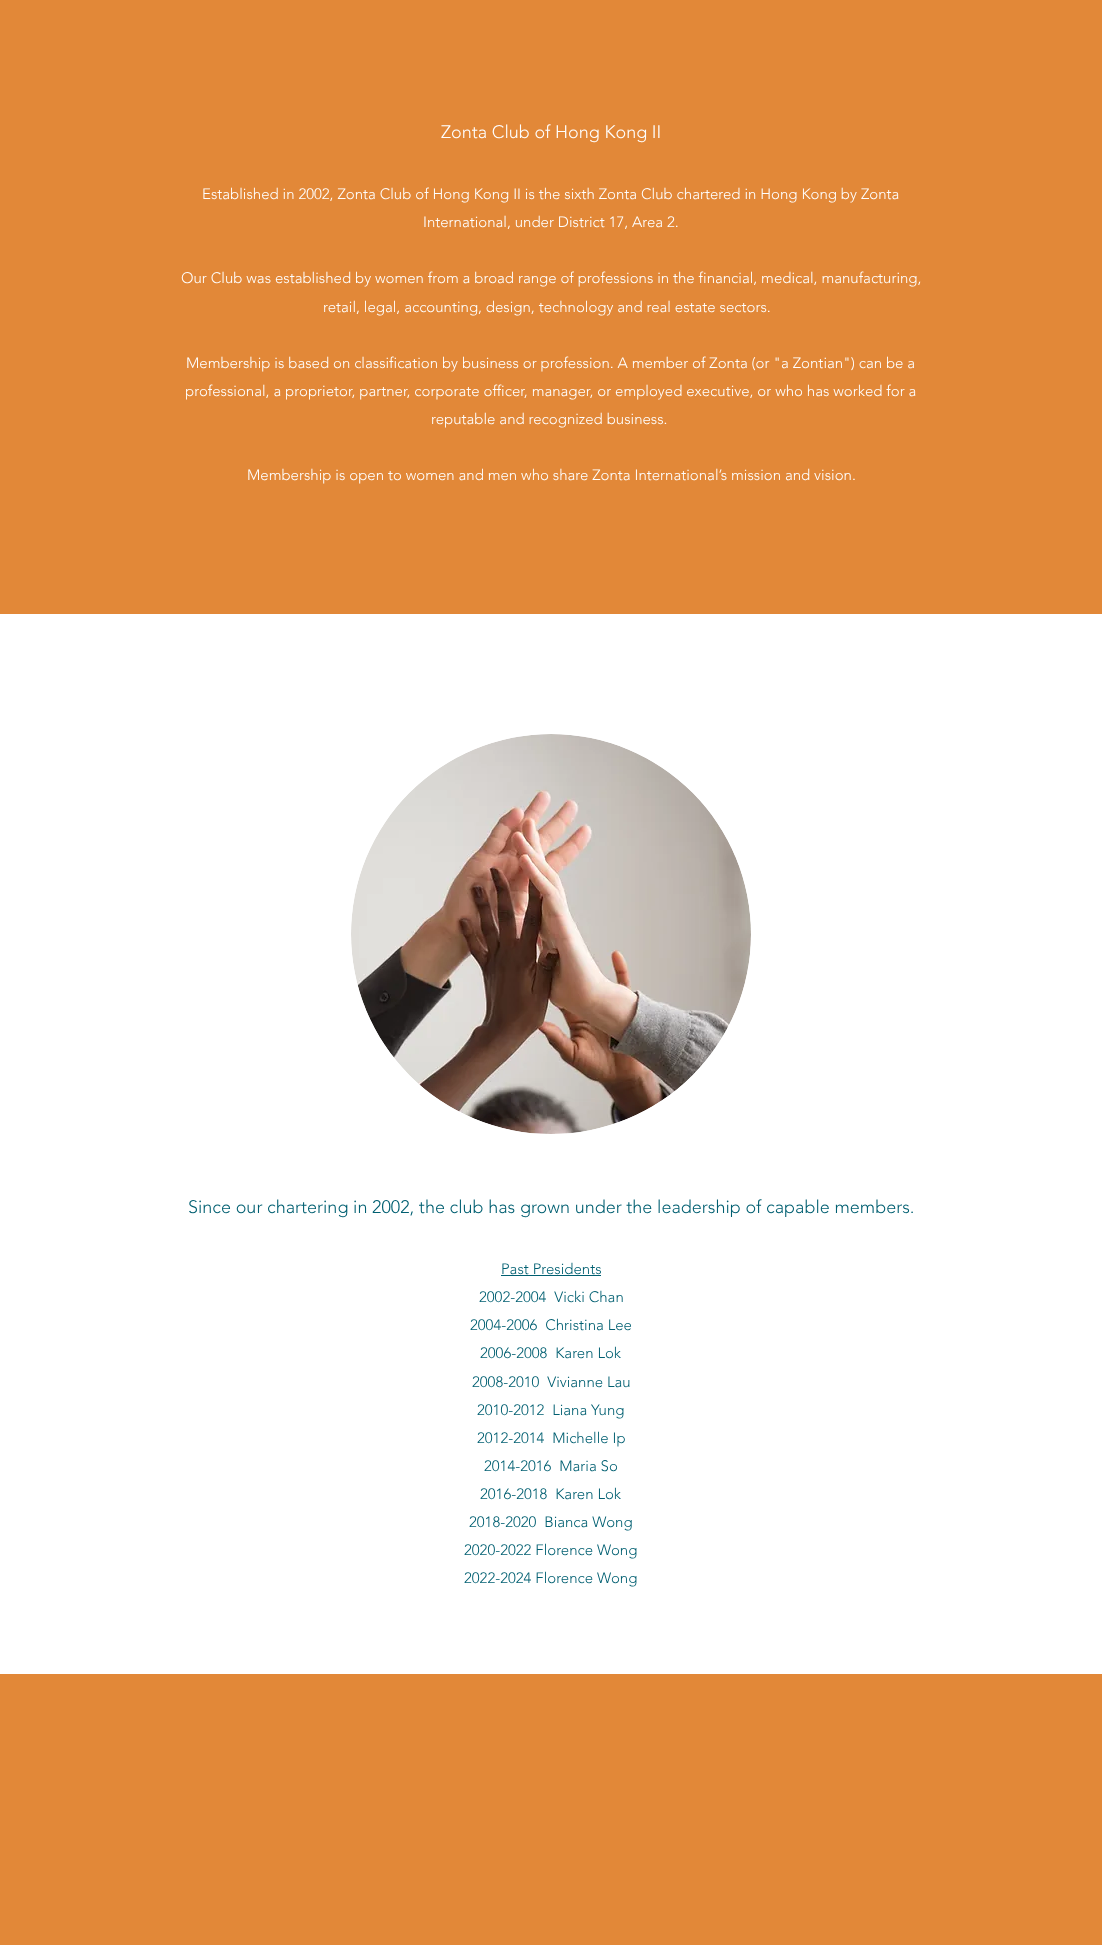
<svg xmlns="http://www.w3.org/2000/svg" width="1102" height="1945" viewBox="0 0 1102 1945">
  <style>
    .t1 { font: 300 18px 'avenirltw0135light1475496'; fill: #fff; }
    .t2 { font: 300 15px 'avenirltw0135light1475496'; fill: #fff; }
    .t3 { font: 300 18px 'avenirltw0135light1475496'; fill: #005f71; }
    .t4 { font: 300 15px 'avenirltw0135light1475496'; fill: #005f71; }
  </style>
  <rect width="100%" height="100%" fill="#fff"/>
  <rect x="0" y="0" width="1102" height="614" fill="#e28838"/>
  <text x="441" y="138" class="t1">Zonta Club of Hong Kong II</text>
  <text x="202" y="199" class="t2">Established in 2002, Zonta Club of Hong Kong II is the sixth Zonta Club chartered in Hong Kong by Zonta</text>
  <text x="423" y="227" class="t2">International, under District 17, Area 2.</text>
  <text x="181" y="283" class="t2">Our Club was established by women from a broad range of professions in the financial, medical, manufacturing,</text>
  <text x="323" y="312" class="t2">retail, legal, accounting, design, technology and real estate sectors.</text>
  <text x="186" y="368" class="t2">Membership is based on classification by business or profession. A member of Zonta (or "a Zontian") can be a</text>
  <text x="185" y="396" class="t2">professional, a proprietor, partner, corporate officer, manager, or employed executive, or who has worked for a</text>
  <text x="431" y="424" class="t2">reputable and recognized business.</text>
  <text x="247" y="480" class="t2">Membership is open to women and men who share Zonta International’s mission and vision.</text>
  <image x="351" y="734" width="400" height="400" href="images/1.png"/>
  <text x="188" y="1213" class="t3">Since our chartering in 2002, the club has grown under the leadership of capable members.</text>
  <text x="501" y="1274" class="t4">Past Presidents</text>
  <rect x="501" y="1275" width="100" height="1" fill="#005f71"/>
  <text x="479" y="1302" class="t4" xml:space="preserve">2002-2004  Vicki Chan</text>
  <text x="470" y="1330" class="t4" xml:space="preserve">2004-2006  Christina Lee</text>
  <text x="480" y="1358" class="t4" xml:space="preserve">2006-2008  Karen Lok</text>
  <text x="472" y="1387" class="t4" xml:space="preserve">2008-2010  Vivianne Lau</text>
  <text x="477" y="1415" class="t4" xml:space="preserve">2010-2012  Liana Yung</text>
  <text x="477" y="1443" class="t4" xml:space="preserve">2012-2014  Michelle Ip</text>
  <text x="484" y="1471" class="t4" xml:space="preserve">2014-2016  Maria So</text>
  <text x="480" y="1499" class="t4" xml:space="preserve">2016-2018  Karen Lok</text>
  <text x="469" y="1527" class="t4" xml:space="preserve">2018-2020  Bianca Wong</text>
  <text x="464" y="1555" class="t4">2020-2022 Florence Wong</text>
  <text x="464" y="1583" class="t4">2022-2024 Florence Wong</text>
  <rect x="0" y="1674" width="1102" height="271" fill="#e28838"/>
</svg>
